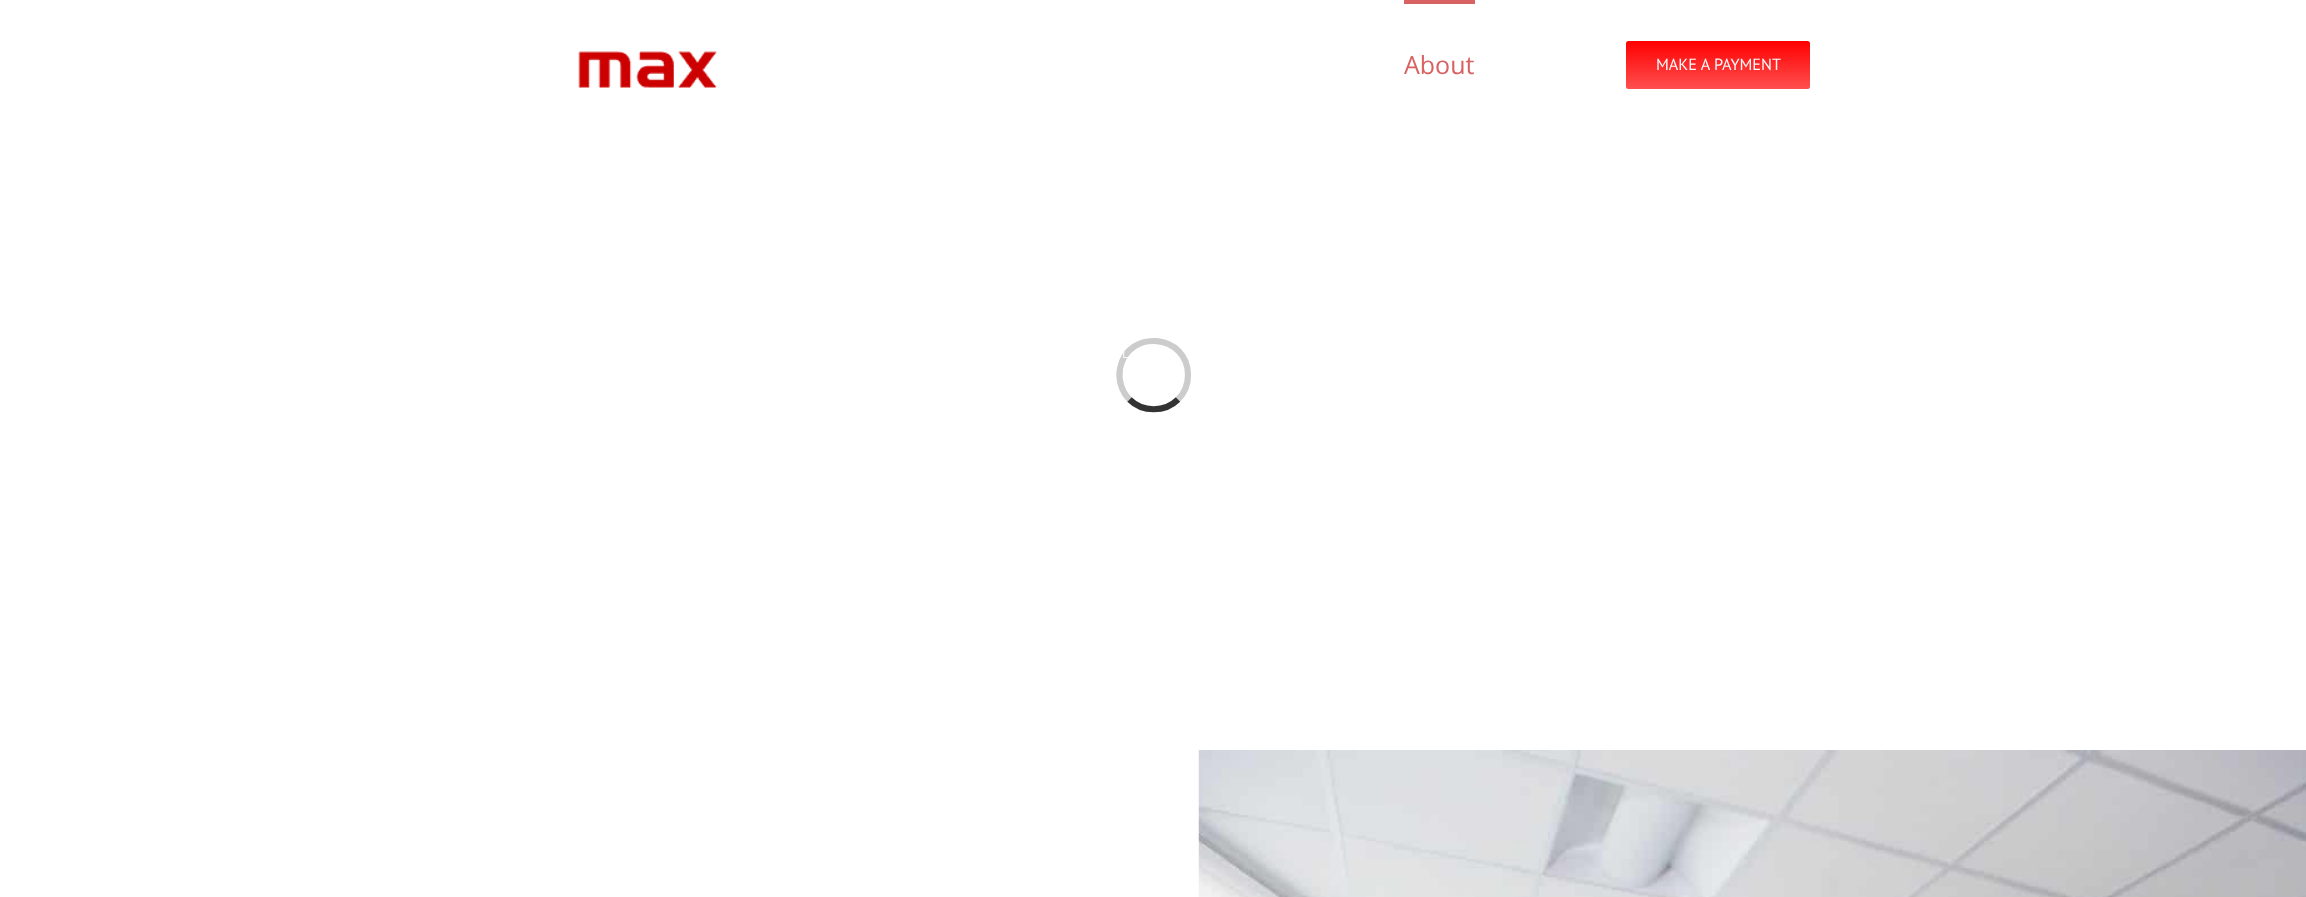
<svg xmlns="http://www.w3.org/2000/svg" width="2306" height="897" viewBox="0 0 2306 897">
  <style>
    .t1 { font: 25px Open Sans; fill: #d86161; }
    .t2 { font: 16.25px PT Sans; fill: #fafafa; }
    .t3 { font: 12px Open Sans; fill: #fafafa; }
  </style>
  <defs>
    <linearGradient id="g1" gradientUnits="userSpaceOnUse" x1="1718" y1="41" x2="1718" y2="89"><stop offset="0" stop-color="#f00"/><stop offset="1" stop-color="#ff4f4f"/></linearGradient>
  </defs>
  <rect width="100%" height="100%" fill="#fff"/>
  <image x="578" y="51" width="139" height="37" href="images/1.png"/>
  <rect x="1404" y="0" width="71" height="4" fill="#d86161"/>
  <text x="1404" y="74" class="t1">About</text>
  <rect x="1626" y="41" width="184" height="48" rx="2.5" fill="url(#g1)"/>
  <text x="1656" y="70" class="t2">MAKE A PAYMENT</text>
  <path d="M1178 399.5C1165 412.5 1142.5 412.5 1129.5 399.5" fill="none" stroke="#333" stroke-width="6.2"/>
  <path d="M1129.5 399.5C1121.5 391.5 1118 379.5 1120 368.5C1128 328 1188 334 1188 375C1188 384 1184.5 393 1178 399.5" fill="none" stroke="#00000033" stroke-width="6.2"/>
  <text x="1122" y="358" class="t3">L</text>
  <image x="1198" y="750" width="1108" height="147" href="images/2.png"/>
</svg>
